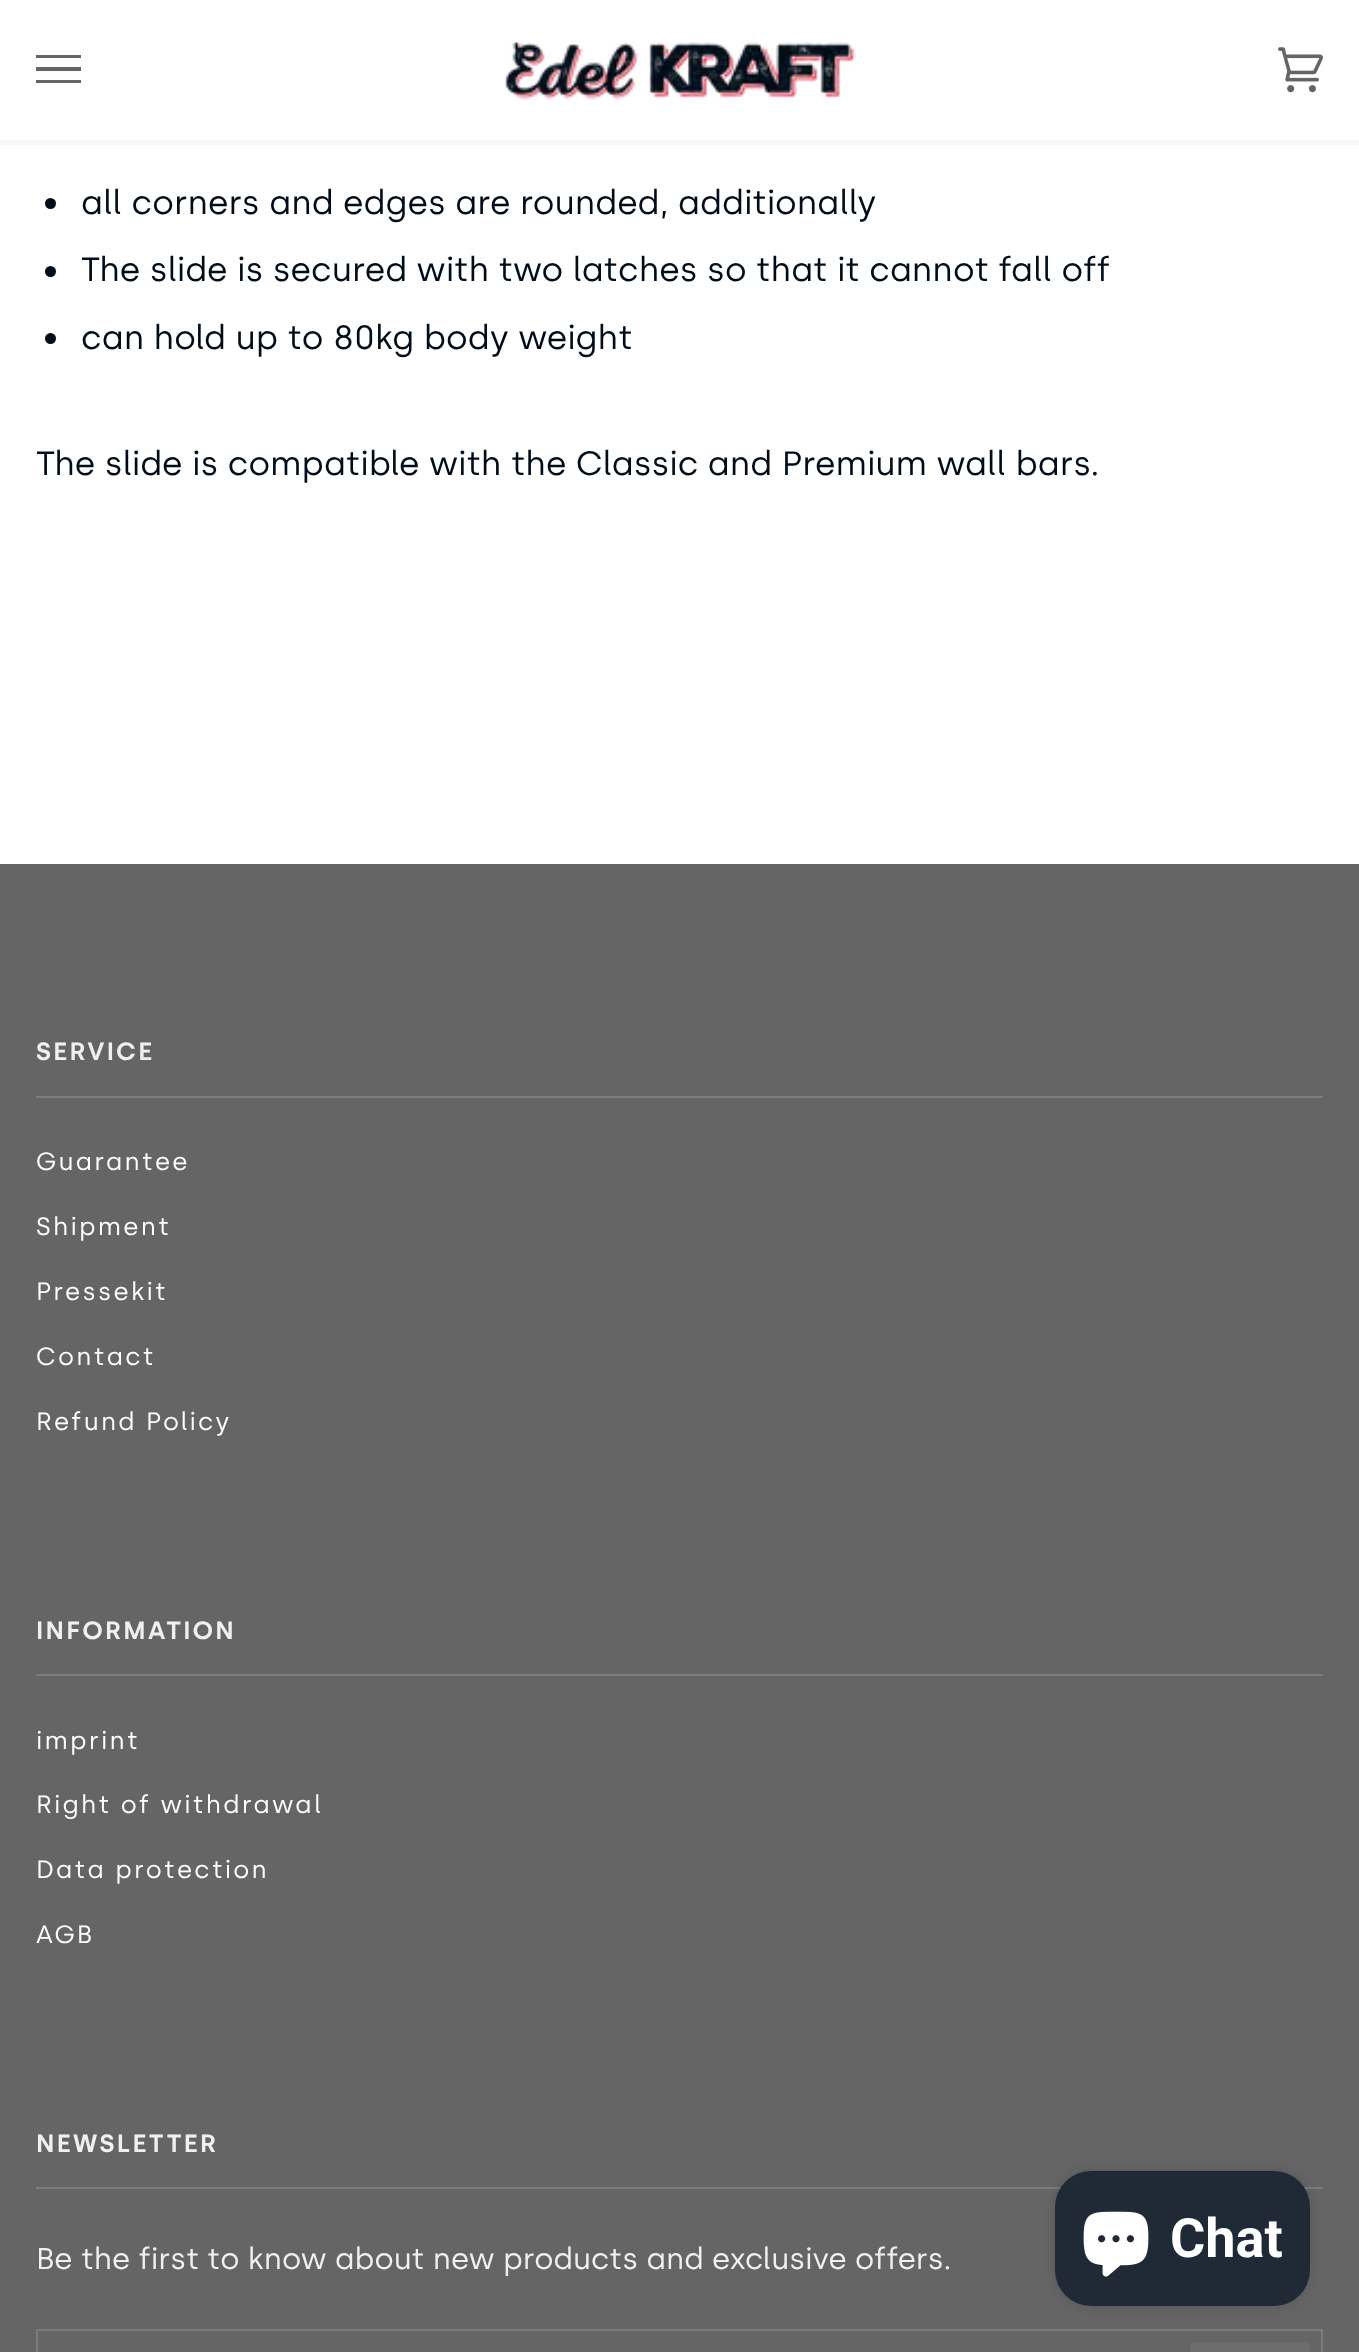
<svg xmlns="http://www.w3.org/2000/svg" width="1359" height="2352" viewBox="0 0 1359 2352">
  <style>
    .t1 { font: 33.75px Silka; fill: #000d19; }
    .t2 { font: 600 25px Silka; letter-spacing: 2.25px; fill: #f0f0f0; }
    .t3 { font: 25px Silka; letter-spacing: 2.25px; fill: #fff; }
    .t4 { font: 30px Silka; fill: #f0f0f0; }
    .t5 { font: bold 54px Roboto; fill: #fff; }
  </style>
  <rect width="100%" height="100%" fill="#fff"/>
  <rect x="0" y="140" width="1359" height="5" fill="#f7f7f7"/>
  <path d="M36 55H81V58H36ZM36 67H81V71H36ZM36 80H81V83H36Z" fill="#656565"/>
  <image x="505" y="42" width="351" height="58" href="images/1.png"/>
  <image x="1278" y="47" width="45" height="46" href="images/2.png"/>
  <circle cx="50.5" cy="203.5" r="5.5" fill="#000d19"/>
  <text x="81" y="214" class="t1">all corners and edges are rounded, additionally</text>
  <circle cx="50.5" cy="271.5" r="5.5" fill="#000d19"/>
  <text x="81" y="281" class="t1">The slide is secured with two latches so that it cannot fall off</text>
  <circle cx="50.5" cy="338.5" r="5.5" fill="#000d19"/>
  <text x="81" y="349" class="t1">can hold up to 80kg body weight</text>
  <text x="36" y="475" class="t1">The slide is compatible with the Classic and Premium wall bars.</text>
  <rect x="0" y="864" width="1359" height="1488" fill="#656565"/>
  <text x="36" y="1060" class="t2">SERVICE</text>
  <rect x="36" y="1096" width="1287" height="2" fill="#7c7c7c"/>
  <text x="36" y="1170" class="t3">Guarantee</text>
  <text x="36" y="1235" class="t3">Shipment</text>
  <text x="36" y="1300" class="t3">Pressekit</text>
  <text x="36" y="1365" class="t3">Contact</text>
  <text x="36" y="1430" class="t3">Refund Policy</text>
  <text x="36" y="1639" class="t2">INFORMATION</text>
  <rect x="36" y="1674" width="1287" height="2" fill="#7c7c7c"/>
  <text x="36" y="1749" class="t3">imprint</text>
  <text x="36" y="1813" class="t3">Right of withdrawal</text>
  <text x="36" y="1878" class="t3">Data protection</text>
  <text x="36" y="1943" class="t3">AGB</text>
  <text x="36" y="2152" class="t2">NEWSLETTER</text>
  <rect x="36" y="2187" width="1287" height="2" fill="#7c7c7c"/>
  <text x="36" y="2269" class="t4">Be the first to know about new products and exclusive offers.</text>
  <rect x="37" y="2330" width="1285" height="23" fill="none" stroke="#7c7c7c" stroke-width="2"/>
  <rect x="1190" y="2342" width="120" height="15" rx="5" fill="#6d6d6d"/>
  <rect x="1055" y="2171" width="255" height="135" rx="36" fill="#00000026" filter="blur(5.5px)"/>
  <rect x="1055" y="2171" width="255" height="135" rx="36" fill="#202a36"/>
  <image x="1083" y="2211" width="66" height="66" href="images/3.png"/>
  <text x="1170" y="2257" class="t5">Chat</text>
</svg>
